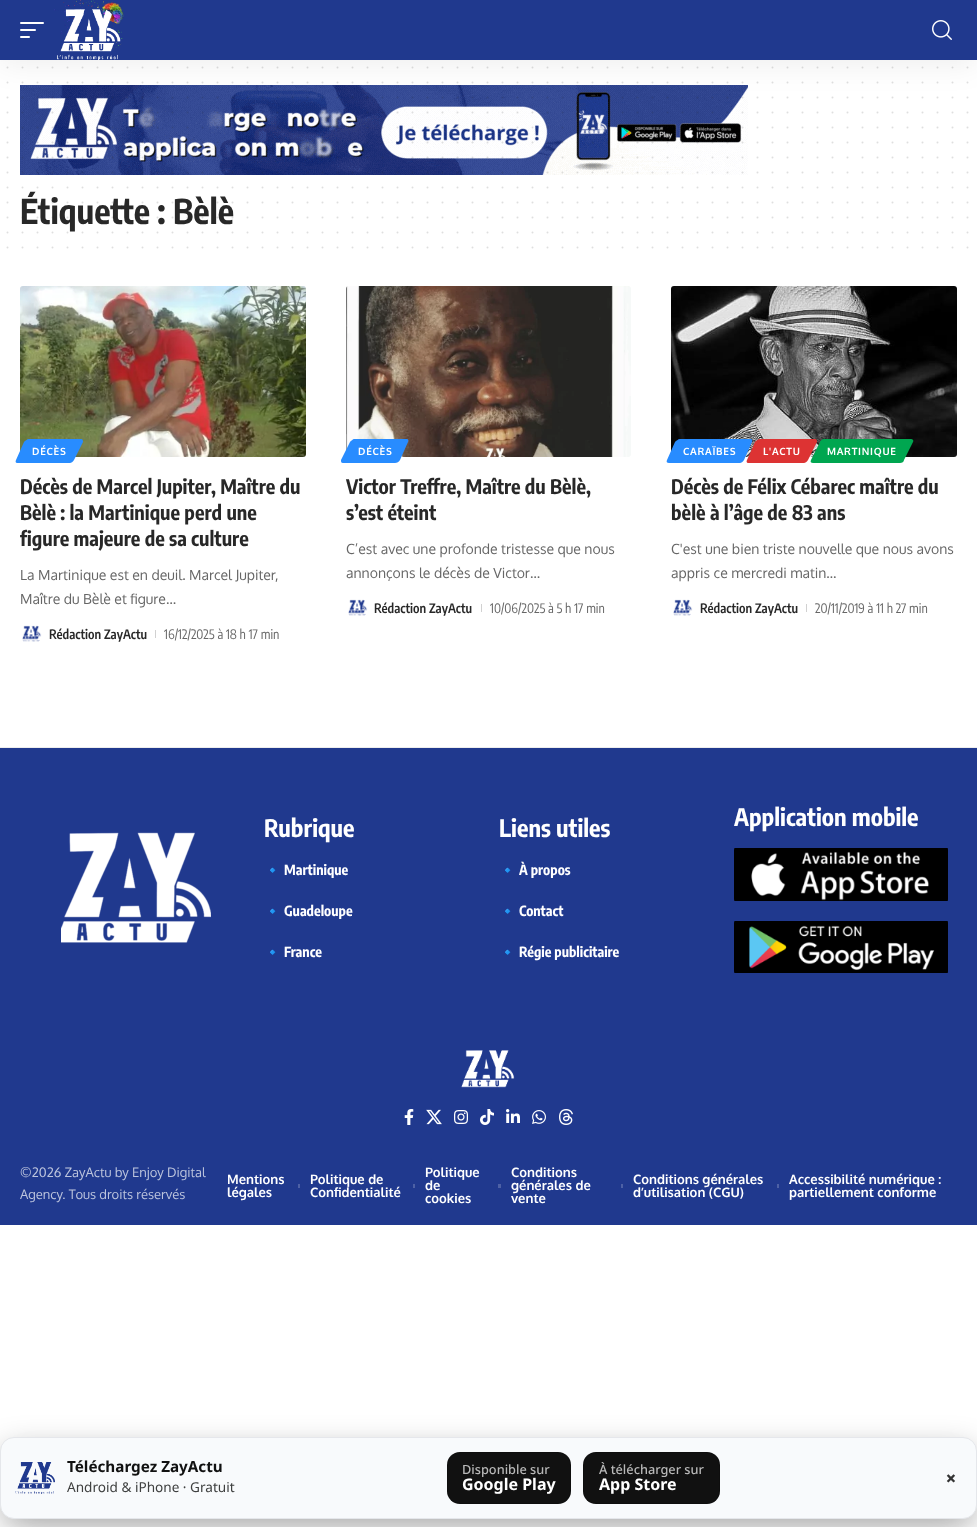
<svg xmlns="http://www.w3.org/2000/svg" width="977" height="1527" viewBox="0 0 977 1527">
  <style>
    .t1 { font: bold 34px Encode Sans Condensed; fill: #282828; }
    .t2 { font: bold 10px Oxygen; letter-spacing: 0.75px; fill: #fff; }
    .t3 { font: bold 20px Encode Sans Condensed; fill: #282828; }
    .t4 { font: 14px Oxygen; fill: #666; }
    .t5 { font: 600 13px Encode Sans Condensed; fill: #282828; }
    .t6 { font: 13px Encode Sans Condensed; fill: #666; }
    .t7 { font: bold 24px Encode Sans Condensed; fill: #fff; }
    .t8 { font: bold 14px Noto Color Emoji; fill: #fff; }
    .t9 { font: bold 14px Encode Sans Condensed; fill: #fff; }
    .t10 { font: 13px Oxygen; fill: #bcc4dd; }
    .t11 { font: bold 13px Oxygen; fill: #fff; }
    .t12 { font: bold 15.25px Noto Sans; fill: #111; }
    .t13 { font: 13.6px Noto Sans; fill: #3f4040; }
    .t14 { font: 500 12.75px Noto Sans; fill: #b8b8b8; }
    .t15 { font: bold 16px Noto Sans; fill: #fff; }
    .t16 { font: bold 20px Encode Sans Condensed; fill: #343434; }
  </style>
  <defs>
    <clipPath id="clip1"><rect x="264" y="859" width="215" height="21"/></clipPath>
    <clipPath id="clip2"><rect x="264" y="900" width="215" height="21"/></clipPath>
    <clipPath id="clip3"><rect x="264" y="941" width="215" height="21"/></clipPath>
    <clipPath id="clip4"><rect x="499" y="859" width="215" height="21"/></clipPath>
    <clipPath id="clip5"><rect x="499" y="900" width="215" height="21"/></clipPath>
    <clipPath id="clip6"><rect x="499" y="941" width="215" height="21"/></clipPath>
  </defs>
  <rect width="100%" height="100%" fill="#fff"/>
  <path d="M7.5 67.5H967.7" fill="none" stroke="#dfdfdf" stroke-width="2" stroke-linecap="round" stroke-dasharray="0 15"/>
  <path d="M7.5 82.5H967.7" fill="none" stroke="#dfdfdf" stroke-width="2" stroke-linecap="round" stroke-dasharray="0 15"/>
  <image x="20" y="85" width="728" height="90" href="images/3.png"/>
  <path d="M7.5 97.5H967.7" fill="none" stroke="#28282826" stroke-width="2" stroke-linecap="round" stroke-dasharray="0 15"/>
  <rect x="0" y="4" width="977" height="60" fill="#00000012" filter="blur(15px)"/>
  <rect x="0" y="0" width="977" height="60" fill="#20398e"/>
  <rect x="20" y="22" width="24" height="2" rx="1" fill="#fff"/>
  <rect x="20" y="29" width="16" height="2" rx="1" fill="#fff"/>
  <rect x="20" y="36" width="10" height="2" rx="1" fill="#fff"/>
  <image x="54" y="0" width="70" height="60" href="images/1.png"/>
  <image x="932" y="20" width="20" height="20" href="images/2.png"/>
  <rect x="20" y="1459" width="937" height="62" rx="7" fill="#0000001f" filter="blur(15px)"/>
  <path d="M7.5 112.5H967.7" fill="none" stroke="#28282826" stroke-width="2" stroke-linecap="round" stroke-dasharray="0 15"/>
  <path d="M7.5 127.5H967.7" fill="none" stroke="#28282826" stroke-width="2" stroke-linecap="round" stroke-dasharray="0 15"/>
  <path d="M7.5 142.5H967.7" fill="none" stroke="#28282826" stroke-width="2" stroke-linecap="round" stroke-dasharray="0 15"/>
  <path d="M7.5 157.5H967.7" fill="none" stroke="#28282826" stroke-width="2" stroke-linecap="round" stroke-dasharray="0 15"/>
  <path d="M7.5 172.5H967.7" fill="none" stroke="#28282826" stroke-width="2" stroke-linecap="round" stroke-dasharray="0 15"/>
  <path d="M7.5 187.5H967.7" fill="none" stroke="#dfdfdf" stroke-width="2" stroke-linecap="round" stroke-dasharray="0 15"/>
  <text x="20" y="224" class="t1">Étiquette : Bèlè</text>
  <path d="M7.5 202.5H967.7" fill="none" stroke="#28282826" stroke-width="2" stroke-linecap="round" stroke-dasharray="0 15"/>
  <path d="M7.5 217.5H967.7" fill="none" stroke="#28282826" stroke-width="2" stroke-linecap="round" stroke-dasharray="0 15"/>
  <path d="M7.5 232.5H967.7" fill="none" stroke="#dfdfdf" stroke-width="2" stroke-linecap="round" stroke-dasharray="0 15"/>
  <path d="M7.5 247.5H967.7" fill="none" stroke="#dfdfdf" stroke-width="2" stroke-linecap="round" stroke-dasharray="0 15"/>
  <image x="20" y="286" width="286" height="171" href="images/4.png"/>
  <path d="M29 439H81C83 439 83 441 83 442L74 460C73 462 71 463 70 463H17C16 463 15 462 16 460L24 442C25 441 27 439 29 439Z" fill="#288cff"/>
  <text x="32" y="455" class="t2">DÉCÈS</text>
  <text x="20" y="494" class="t3">Décès de Marcel Jupiter, Maître du</text>
  <text x="20" y="520" class="t3">Bèlè : la Martinique perd une</text>
  <text x="20" y="546" class="t3">figure majeure de sa culture</text>
  <text x="20" y="580" class="t4">La Martinique est en deuil. Marcel Jupiter,</text>
  <text x="20" y="604" class="t4">Maître du Bèlè et figure…</text>
  <image x="22" y="625" width="20" height="17" href="images/5.png"/>
  <text x="49" y="639" class="t5">Rédaction ZayActu</text>
  <rect x="155" y="630" width="1" height="8" fill="#d1d1d1"/>
  <text x="164" y="639" class="t6">16/12/2025 à 18 h 17 min</text>
  <image x="346" y="286" width="285" height="171" href="images/6.png"/>
  <path d="M354 439H407C408 439 409 441 408 442L400 460C399 462 397 463 395 463H343C341 463 341 462 341 460L350 442C351 441 353 439 354 439Z" fill="#288cff"/>
  <text x="358" y="455" class="t2">DÉCÈS</text>
  <text x="346" y="494" class="t3">Victor Treffre, Maître du Bèlè,</text>
  <text x="346" y="520" class="t3">s’est éteint</text>
  <text x="346" y="554" class="t4">C’est avec une profonde tristesse que nous</text>
  <text x="346" y="578" class="t4">annonçons le décès de Victor…</text>
  <image x="348" y="599" width="20" height="17" href="images/7.png"/>
  <text x="374" y="613" class="t5">Rédaction ZayActu</text>
  <rect x="481" y="604" width="1" height="8" fill="#d1d1d1"/>
  <text x="490" y="613" class="t6">10/06/2025 à 5 h 17 min</text>
  <image x="671" y="286" width="286" height="171" href="images/8.png"/>
  <path d="M680 439H751C752 439 753 441 752 442L744 460C743 462 741 463 740 463H669C667 463 666 462 667 460L675 442C676 441 678 439 680 439Z" fill="#288cff"/>
  <text x="683" y="455" class="t2">CARAÏBES</text>
  <path d="M760 439H815C817 439 817 441 817 442L808 460C807 462 805 463 804 463H749C747 463 746 462 747 460L755 442C756 441 758 439 760 439Z" fill="#d33"/>
  <text x="763" y="455" class="t2">L'ACTU</text>
  <path d="M824 439H911C913 439 914 441 913 442L904 460C904 462 902 463 900 463H813C811 463 810 462 811 460L820 442C820 441 822 439 824 439Z" fill="#00a650"/>
  <text x="827" y="455" class="t2">MARTINIQUE</text>
  <text x="671" y="494" class="t3">Décès de Félix Cébarec maître du</text>
  <text x="671" y="520" class="t3">bèlè à l’âge de 83 ans</text>
  <text x="671" y="554" class="t4">C'est une bien triste nouvelle que nous avons</text>
  <text x="671" y="578" class="t4">appris ce mercredi matin…</text>
  <image x="673" y="599" width="20" height="17" href="images/9.png"/>
  <text x="700" y="613" class="t5">Rédaction ZayActu</text>
  <rect x="806" y="604" width="1" height="8" fill="#d1d1d1"/>
  <text x="815" y="613" class="t6">20/11/2019 à 11 h 27 min</text>
  <rect x="0" y="747" width="977" height="1" fill="#ededed"/>
  <rect x="0" y="748" width="977" height="477" fill="#20398e"/>
  <image x="61" y="832" width="150" height="111" href="images/10.png"/>
  <text x="264" y="837" class="t7">Rubrique</text>
  <g clip-path="url(#clip1)">
    <text x="264" y="875" class="t8">🔹</text>
  </g>
  <text x="284" y="875" class="t9">Martinique</text>
  <g clip-path="url(#clip2)">
    <text x="264" y="916" class="t8">🔹</text>
  </g>
  <text x="284" y="916" class="t9">Guadeloupe</text>
  <g clip-path="url(#clip3)">
    <text x="264" y="957" class="t8">🔹</text>
  </g>
  <text x="284" y="957" class="t9">France</text>
  <text x="499" y="837" class="t7">Liens utiles</text>
  <g clip-path="url(#clip4)">
    <text x="499" y="875" class="t8">🔹</text>
  </g>
  <text x="519" y="875" class="t9">À propos</text>
  <g clip-path="url(#clip5)">
    <text x="499" y="916" class="t8">🔹</text>
  </g>
  <text x="519" y="916" class="t9">Contact</text>
  <g clip-path="url(#clip6)">
    <text x="499" y="957" class="t8">🔹</text>
  </g>
  <text x="519" y="957" class="t9">Régie publicitaire</text>
  <text x="734" y="826" class="t7">Application mobile</text>
  <image x="734" y="848" width="214" height="53" href="images/11.png"/>
  <image x="734" y="921" width="214" height="52" href="images/12.png"/>
  <image x="461" y="1050" width="54" height="38" href="images/13.png"/>
  <image x="404" y="1109" width="10" height="16" href="images/14.png"/>
  <image x="426" y="1109" width="16" height="16" href="images/15.png"/>
  <image x="454" y="1110" width="14" height="14" href="images/16.png"/>
  <image x="480" y="1109" width="14" height="16" href="images/17.png"/>
  <image x="506" y="1109" width="14" height="14" href="images/18.png"/>
  <image x="532" y="1110" width="14" height="14" href="images/19.png"/>
  <image x="559" y="1109" width="14" height="16" href="images/20.png"/>
  <text x="20" y="1177" class="t10">©2026 ZayActu by Enjoy Digital</text>
  <text x="20" y="1199" class="t10">Agency. Tous droits réservés</text>
  <text x="227" y="1184" class="t11">Mentions</text>
  <text x="227" y="1197" class="t11">légales</text>
  <rect x="298" y="1184" width="2" height="4" fill="#4d61a5"/>
  <text x="310" y="1184" class="t11">Politique de</text>
  <text x="310" y="1197" class="t11">Confidentialité</text>
  <rect x="413" y="1184" width="2" height="4" fill="#4d61a5"/>
  <text x="425" y="1177" class="t11">Politique</text>
  <text x="425" y="1190" class="t11">de</text>
  <text x="425" y="1203" class="t11">cookies</text>
  <rect x="498" y="1184" width="3" height="4" fill="#4d61a5"/>
  <text x="511" y="1177" class="t11">Conditions</text>
  <text x="511" y="1190" class="t11">générales de</text>
  <text x="511" y="1203" class="t11">vente</text>
  <rect x="621" y="1184" width="2" height="4" fill="#4d61a5"/>
  <text x="633" y="1184" class="t11">Conditions générales</text>
  <text x="633" y="1197" class="t11">d’utilisation (CGU)</text>
  <rect x="777" y="1184" width="2" height="4" fill="#4d61a5"/>
  <text x="789" y="1184" class="t11">Accessibilité numérique :</text>
  <text x="789" y="1197" class="t11">partiellement conforme</text>
  <rect x="0" y="1447" width="977" height="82" rx="14" fill="#00000040" filter="blur(15px)"/>
  <rect x="0.5" y="1437.5" width="976" height="81" rx="13.5" fill="#f8fafc" stroke="#e5e7eb"/>
  <image x="15" y="1462" width="40" height="32" href="images/21.png"/>
  <text x="67" y="1472" class="t12">Téléchargez ZayActu</text>
  <text x="67" y="1492" class="t13">Android &amp; iPhone · Gratuit</text>
  <rect x="447" y="1452" width="124" height="52" rx="13" fill="#111"/>
  <rect x="447.5" y="1452.5" width="123" height="51" rx="12.5" fill="none" stroke="#0000001f"/>
  <text x="462" y="1474" class="t14">Disponible sur</text>
  <text x="462" y="1490" class="t15">Google Play</text>
  <rect x="583" y="1452" width="137" height="52" rx="13" fill="#111"/>
  <rect x="583.5" y="1452.5" width="136" height="51" rx="12.5" fill="none" stroke="#0000001f"/>
  <text x="599" y="1474" class="t14">À télécharger sur</text>
  <text x="599" y="1490" class="t15">App Store</text>
  <text x="946" y="1486" class="t16">×</text>
</svg>
